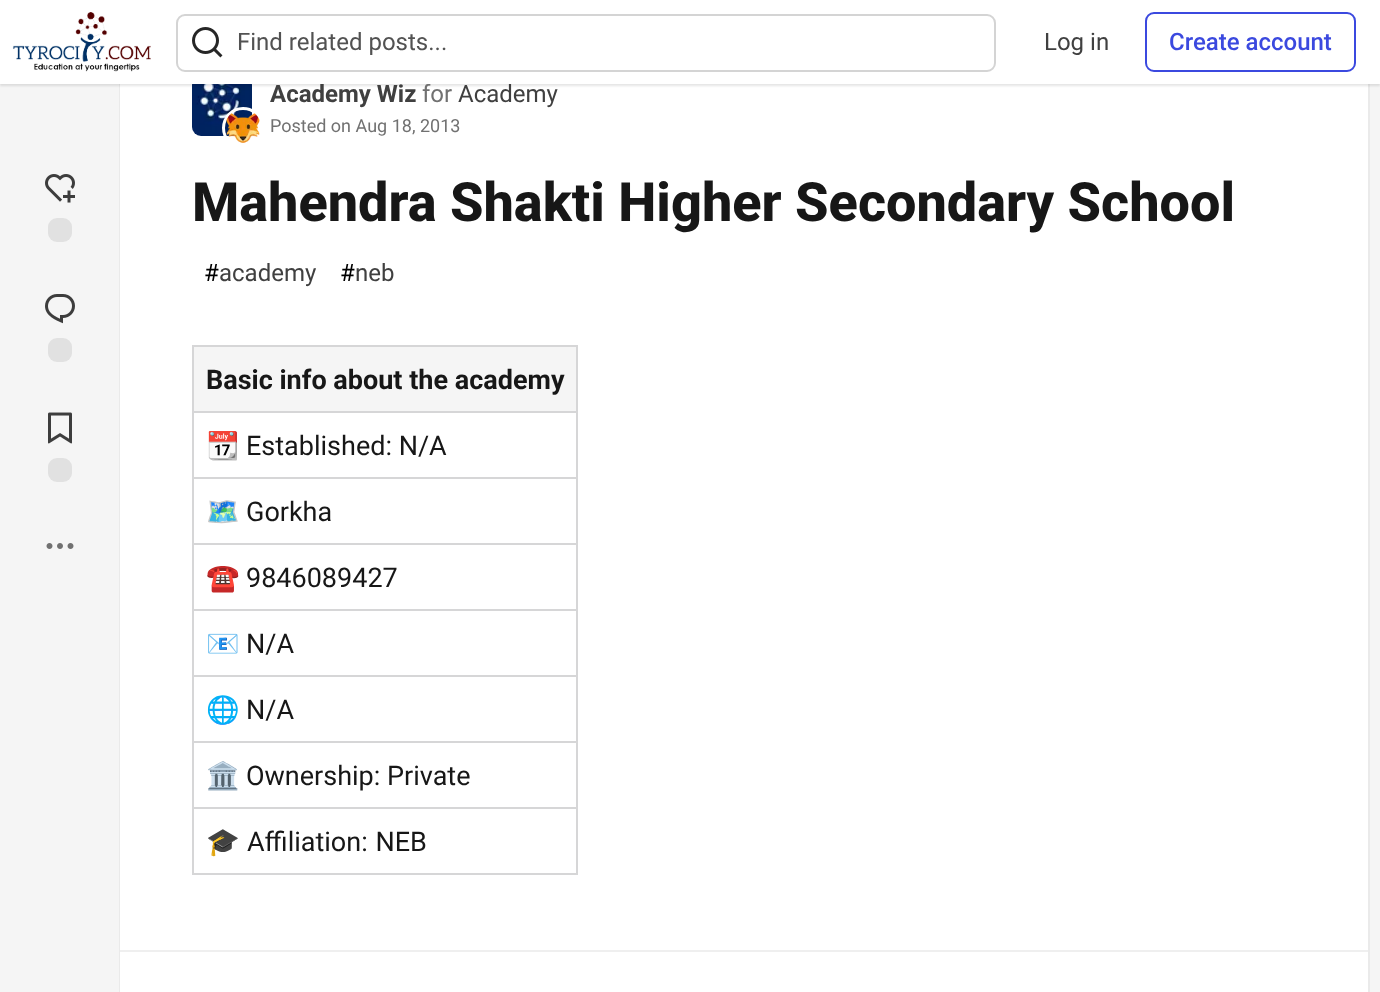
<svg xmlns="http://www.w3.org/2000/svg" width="1380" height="992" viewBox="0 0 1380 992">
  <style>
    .t1 { font: 24px Roboto; fill: #717171; }
    .t2 { font: 24px Roboto; fill: #525252; }
    .t3 { font: 24px Roboto; fill: #404040; }
    .t4 { font: 500 24px Roboto; fill: #3b49df; }
    .t5 { font: bold 24px Roboto; fill: #404040; }
    .t6 { font: 18px Roboto; fill: #717171; }
    .t7 { font: 800 54px Roboto; fill: #171717; }
    .t8 { font: 24px Roboto; fill: #000; }
    .t9 { font: bold 27px Roboto; fill: #171717; }
    .t10 { font: 27px Noto Color Emoji; fill: #171717; }
    .t11 { font: 27px Roboto; fill: #171717; }
  </style>
  <rect width="100%" height="100%" fill="#f5f5f5"/>
  <rect x="120" y="28" width="1249" height="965" fill="none" stroke="#eaeaea" stroke-width="2"/>
  <rect x="120" y="84" width="1248" height="908" fill="#fff"/>
  <image x="192" y="84" width="60" height="52" href="images/7.png"/>
  <rect x="0" y="2" width="1380" height="84" fill="#0000001a" filter="blur(1px)"/>
  <text x="422" y="102" class="t1">for</text>
  <rect x="0" y="0" width="1380" height="84" fill="#fff"/>
  <image x="12" y="12" width="139" height="60" href="images/1.png"/>
  <rect x="177" y="15" width="818" height="56" rx="8" fill="none" stroke="#d4d4d4" stroke-width="2"/>
  <image x="192" y="27" width="31" height="31" href="images/2.png"/>
  <text x="237" y="50" class="t2">Find related posts...</text>
  <text x="1044" y="50" class="t3">Log in</text>
  <rect x="1146" y="13" width="209" height="58" rx="8" fill="none" stroke="#3b49df" stroke-width="2"/>
  <text x="1169" y="50" class="t4">Create account</text>
  <image x="45" y="174" width="30" height="29" href="images/3.png"/>
  <rect x="48" y="218" width="24" height="24" rx="9" fill="#e1e1e1"/>
  <image x="45" y="294" width="30" height="30" href="images/4.png"/>
  <rect x="48" y="338" width="24" height="24" rx="9" fill="#e1e1e1"/>
  <image x="48" y="412" width="24" height="32" href="images/5.png"/>
  <rect x="48" y="458" width="24" height="24" rx="9" fill="#e1e1e1"/>
  <image x="46" y="543" width="28" height="6" href="images/6.png"/>
  <circle cx="243" cy="128" r="19.5" fill="none" stroke="#fff" stroke-width="3"/>
  <image x="226" y="113" width="34" height="30" href="images/8.png"/>
  <text x="270" y="102" class="t5">Academy Wiz</text>
  <text x="458" y="102" class="t3">Academy</text>
  <text x="270" y="132" class="t6">Posted on Aug 18, 2013</text>
  <text x="192" y="221" class="t7">Mahendra Shakti Higher Secondary School</text>
  <text x="204" y="281" class="t8">#</text>
  <text x="219" y="281" class="t3">academy</text>
  <text x="340" y="281" class="t8">#</text>
  <text x="355" y="281" class="t3">neb</text>
  <rect x="194" y="347" width="382" height="64" fill="#f5f5f5"/>
  <rect x="192" y="345" width="386" height="2" fill="#d6d6d7"/>
  <rect x="192" y="411" width="386" height="2" fill="#d6d6d7"/>
  <rect x="192" y="477" width="386" height="2" fill="#d6d6d7"/>
  <rect x="192" y="543" width="386" height="2" fill="#d6d6d7"/>
  <rect x="192" y="609" width="386" height="2" fill="#d6d6d7"/>
  <rect x="192" y="675" width="386" height="2" fill="#d6d6d7"/>
  <rect x="192" y="741" width="386" height="2" fill="#d6d6d7"/>
  <rect x="192" y="807" width="386" height="2" fill="#d6d6d7"/>
  <rect x="576" y="807" width="2" height="68" fill="#d6d6d7"/>
  <rect x="576" y="741" width="2" height="68" fill="#d6d6d7"/>
  <rect x="576" y="675" width="2" height="68" fill="#d6d6d7"/>
  <rect x="576" y="609" width="2" height="68" fill="#d6d6d7"/>
  <rect x="576" y="543" width="2" height="68" fill="#d6d6d7"/>
  <rect x="576" y="477" width="2" height="68" fill="#d6d6d7"/>
  <rect x="576" y="411" width="2" height="68" fill="#d6d6d7"/>
  <rect x="576" y="345" width="2" height="68" fill="#d6d6d7"/>
  <rect x="192" y="873" width="386" height="2" fill="#d6d6d7"/>
  <rect x="192" y="807" width="2" height="68" fill="#d6d6d7"/>
  <rect x="192" y="741" width="2" height="68" fill="#d6d6d7"/>
  <rect x="192" y="675" width="2" height="68" fill="#d6d6d7"/>
  <rect x="192" y="609" width="2" height="68" fill="#d6d6d7"/>
  <rect x="192" y="543" width="2" height="68" fill="#d6d6d7"/>
  <rect x="192" y="477" width="2" height="68" fill="#d6d6d7"/>
  <rect x="192" y="411" width="2" height="68" fill="#d6d6d7"/>
  <rect x="192" y="345" width="2" height="68" fill="#d6d6d7"/>
  <text x="206" y="389" class="t9">Basic info about the academy</text>
  <text x="206" y="455" class="t10">📆</text>
  <text x="246" y="455" class="t11">Established: N/A</text>
  <text x="206" y="521" class="t10">🗺️</text>
  <text x="246" y="521" class="t11">Gorkha</text>
  <text x="206" y="587" class="t10">☎️</text>
  <text x="246" y="587" class="t11">9846089427</text>
  <text x="206" y="653" class="t10">📧</text>
  <text x="246" y="653" class="t11">N/A</text>
  <text x="206" y="719" class="t10">🌐</text>
  <text x="246" y="719" class="t11">N/A</text>
  <text x="206" y="785" class="t10">🏛️</text>
  <text x="246" y="785" class="t11">Ownership: Private</text>
  <text x="206" y="851" class="t10">🎓</text>
  <text x="247" y="851" word-spacing="1" class="t11">Affiliation: NEB</text>
  <rect x="120" y="950" width="1248" height="2" fill="#efefef"/>
</svg>
